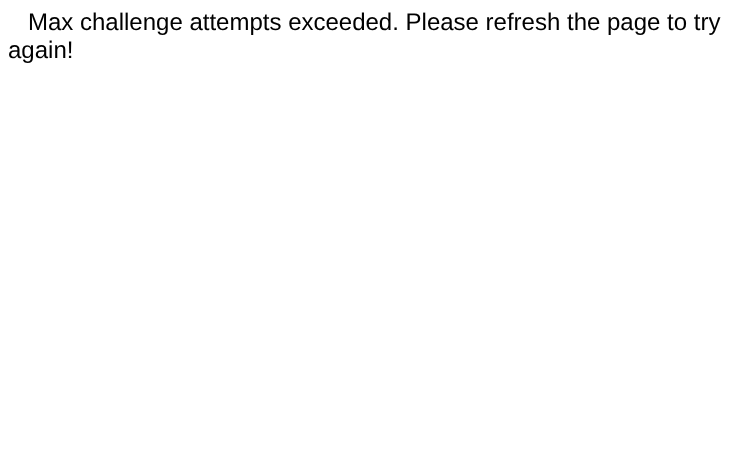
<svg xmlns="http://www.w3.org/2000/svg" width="739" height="452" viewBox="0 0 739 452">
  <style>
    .t1 { font: 24px Liberation Sans; fill: #000; }
  </style>
  <rect width="100%" height="100%" fill="#fff"/>
  <text x="28" y="30" class="t1">Max challenge attempts exceeded. Please refresh the page to try</text>
  <text x="8" y="58" class="t1">again!</text>
</svg>
